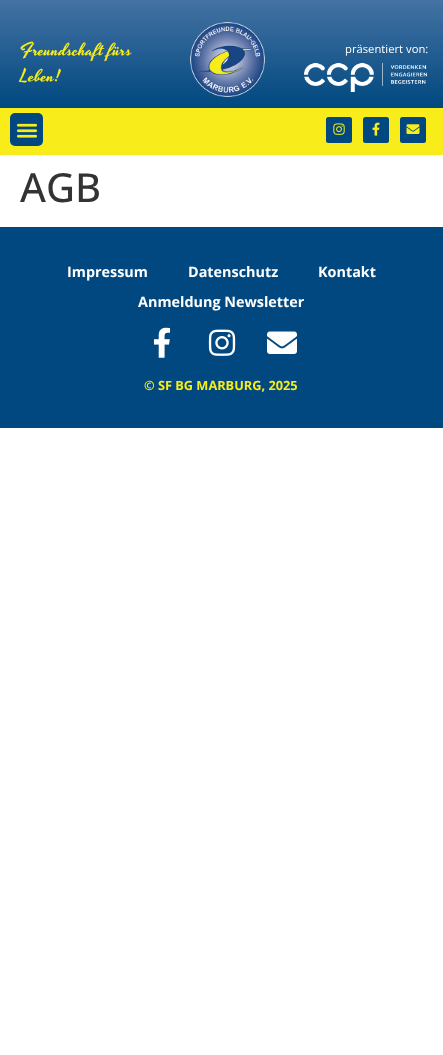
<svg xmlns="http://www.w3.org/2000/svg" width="443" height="1055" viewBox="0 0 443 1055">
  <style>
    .t1 { font: 17.5px Yesteryear; letter-spacing: 0.25px; fill: #f8ec1a; }
    .t2 { font: 11.25px Open Sans; fill: #fff; }
    .t3 { font: 500 40px Open Sans; fill: #333; }
    .t4 { font: bold 14.4px Open Sans; fill: #fff; }
    .t5 { font: bold 12.75px Open Sans; fill: #f8ec1a; }
  </style>
  <defs>
    <linearGradient id="g1" gradientUnits="userSpaceOnUse" x1="222" y1="0" x2="222" y2="108"><stop offset="0" stop-color="#4472a3"/><stop offset="1" stop-color="#00487f"/></linearGradient>
  </defs>
  <rect width="100%" height="100%" fill="#fff"/>
  <rect x="0" y="0" width="443" height="108" fill="url(#g1)"/>
  <text x="20" y="55" class="t1">Freundschaft fürs</text>
  <text x="20" y="81" class="t1">Leben!</text>
  <image x="190" y="22" width="75" height="75" href="images/1.png"/>
  <text x="345" y="53" class="t2">präsentiert von:</text>
  <image x="304" y="62" width="123" height="30" href="images/2.png"/>
  <rect x="0" y="108" width="443" height="47" fill="#f8ec1a"/>
  <rect x="10" y="113" width="33" height="33" rx="5" fill="#00487f"/>
  <image x="16" y="123" width="22" height="15" href="images/3.png"/>
  <rect x="326" y="117" width="26" height="26" rx="2.5" fill="#00487f"/>
  <image x="333" y="123" width="12" height="12" href="images/4.png"/>
  <rect x="363" y="117" width="26" height="26" rx="2.5" fill="#00487f"/>
  <image x="372" y="122" width="8" height="14" href="images/5.png"/>
  <rect x="400" y="117" width="26" height="26" rx="2.5" fill="#00487f"/>
  <image x="406" y="124" width="14" height="10" href="images/6.png"/>
  <text x="20" y="202" class="t3">AGB</text>
  <rect x="0" y="227" width="443" height="201" fill="#00487f"/>
  <text x="67" y="277" class="t4">Impressum</text>
  <text x="188" y="277" class="t4">Datenschutz</text>
  <text x="318" y="277" class="t4">Kontakt</text>
  <text x="138" y="307" class="t4">Anmeldung Newsletter</text>
  <image x="153" y="327" width="18" height="31" href="images/7.png"/>
  <image x="208" y="329" width="28" height="27" href="images/8.png"/>
  <image x="267" y="331" width="30" height="23" href="images/9.png"/>
  <text x="144" y="390" class="t5">© SF BG MARBURG, 2025</text>
</svg>
